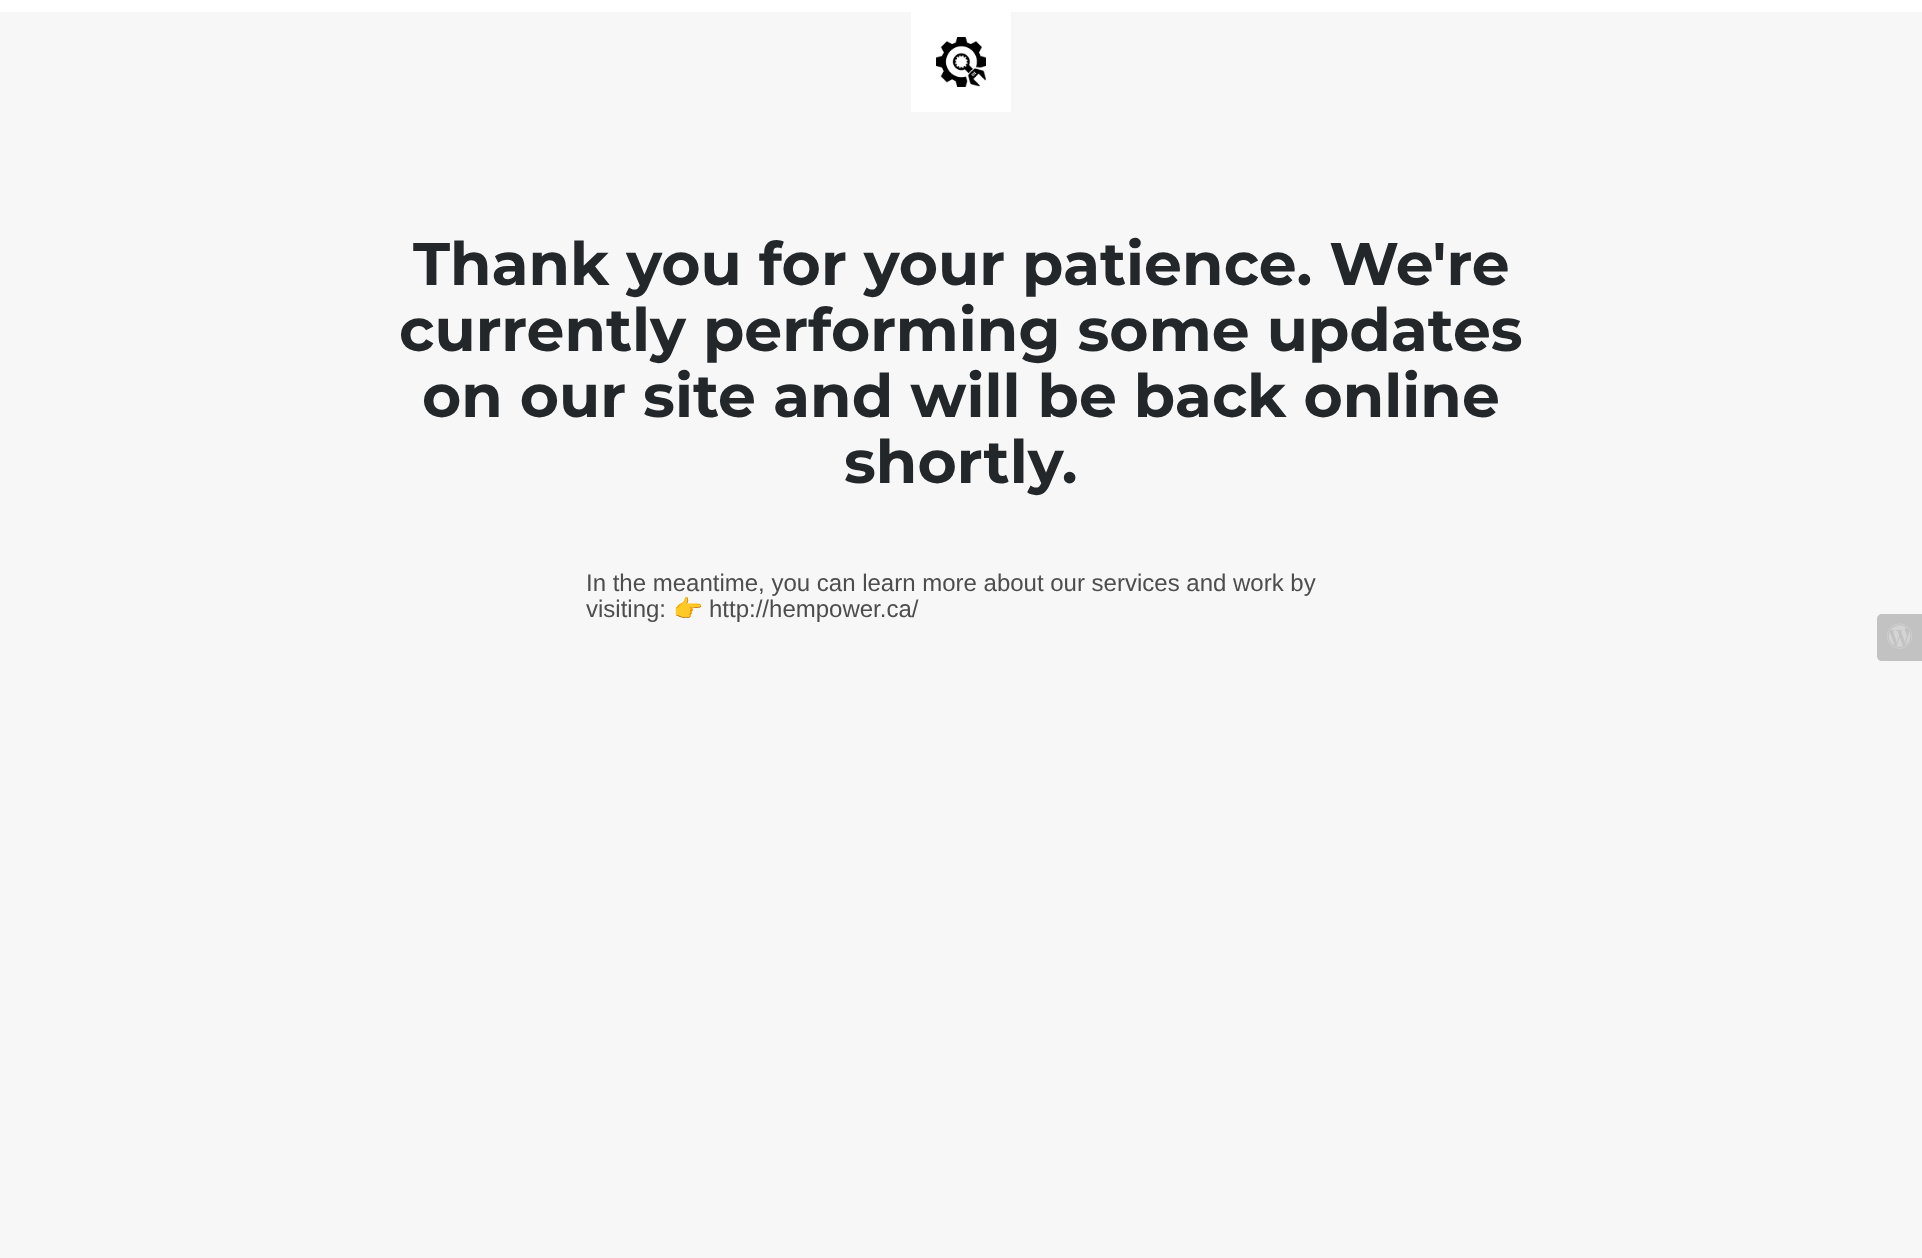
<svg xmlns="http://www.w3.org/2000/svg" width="1922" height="1258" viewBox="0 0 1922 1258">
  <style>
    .t1 { font: 100 60px Montserrat; fill: #23272a; }
    .t2 { font: 24px Liberation Sans; fill: #4d4d4d; }
    .t3 { font: 24px Noto Color Emoji; fill: #4d4d4d; }
  </style>
  <rect width="100%" height="100%" fill="#f7f7f7"/>
  <rect x="0" y="0" width="1922" height="12" fill="#fff"/>
  <rect x="911" y="12" width="100" height="100" fill="#fff"/>
  <image x="936" y="37" width="50" height="50" href="images/1.png"/>
  <text x="413" y="285" class="t1">Thank you for your patience. We're</text>
  <text x="399" y="351" class="t1">currently performing some updates</text>
  <text x="422" y="417" class="t1">on our site and will be back online</text>
  <text x="844" y="483" class="t1">shortly.</text>
  <text x="586" y="591" class="t2">In the meantime, you can learn more about our services and work by</text>
  <text x="586" y="617" class="t2">visiting:</text>
  <text x="673" y="617" class="t3">👉</text>
  <text x="709" y="617" class="t2">http://hempower.ca/</text>
  <path d="M1882 614H1922V661H1882C1879 661 1877 659 1877 656V619C1877 616 1879 614 1882 614Z" fill="#c2c2c2"/>
  <image x="1887" y="623" width="25" height="26" href="images/2.png"/>
</svg>
